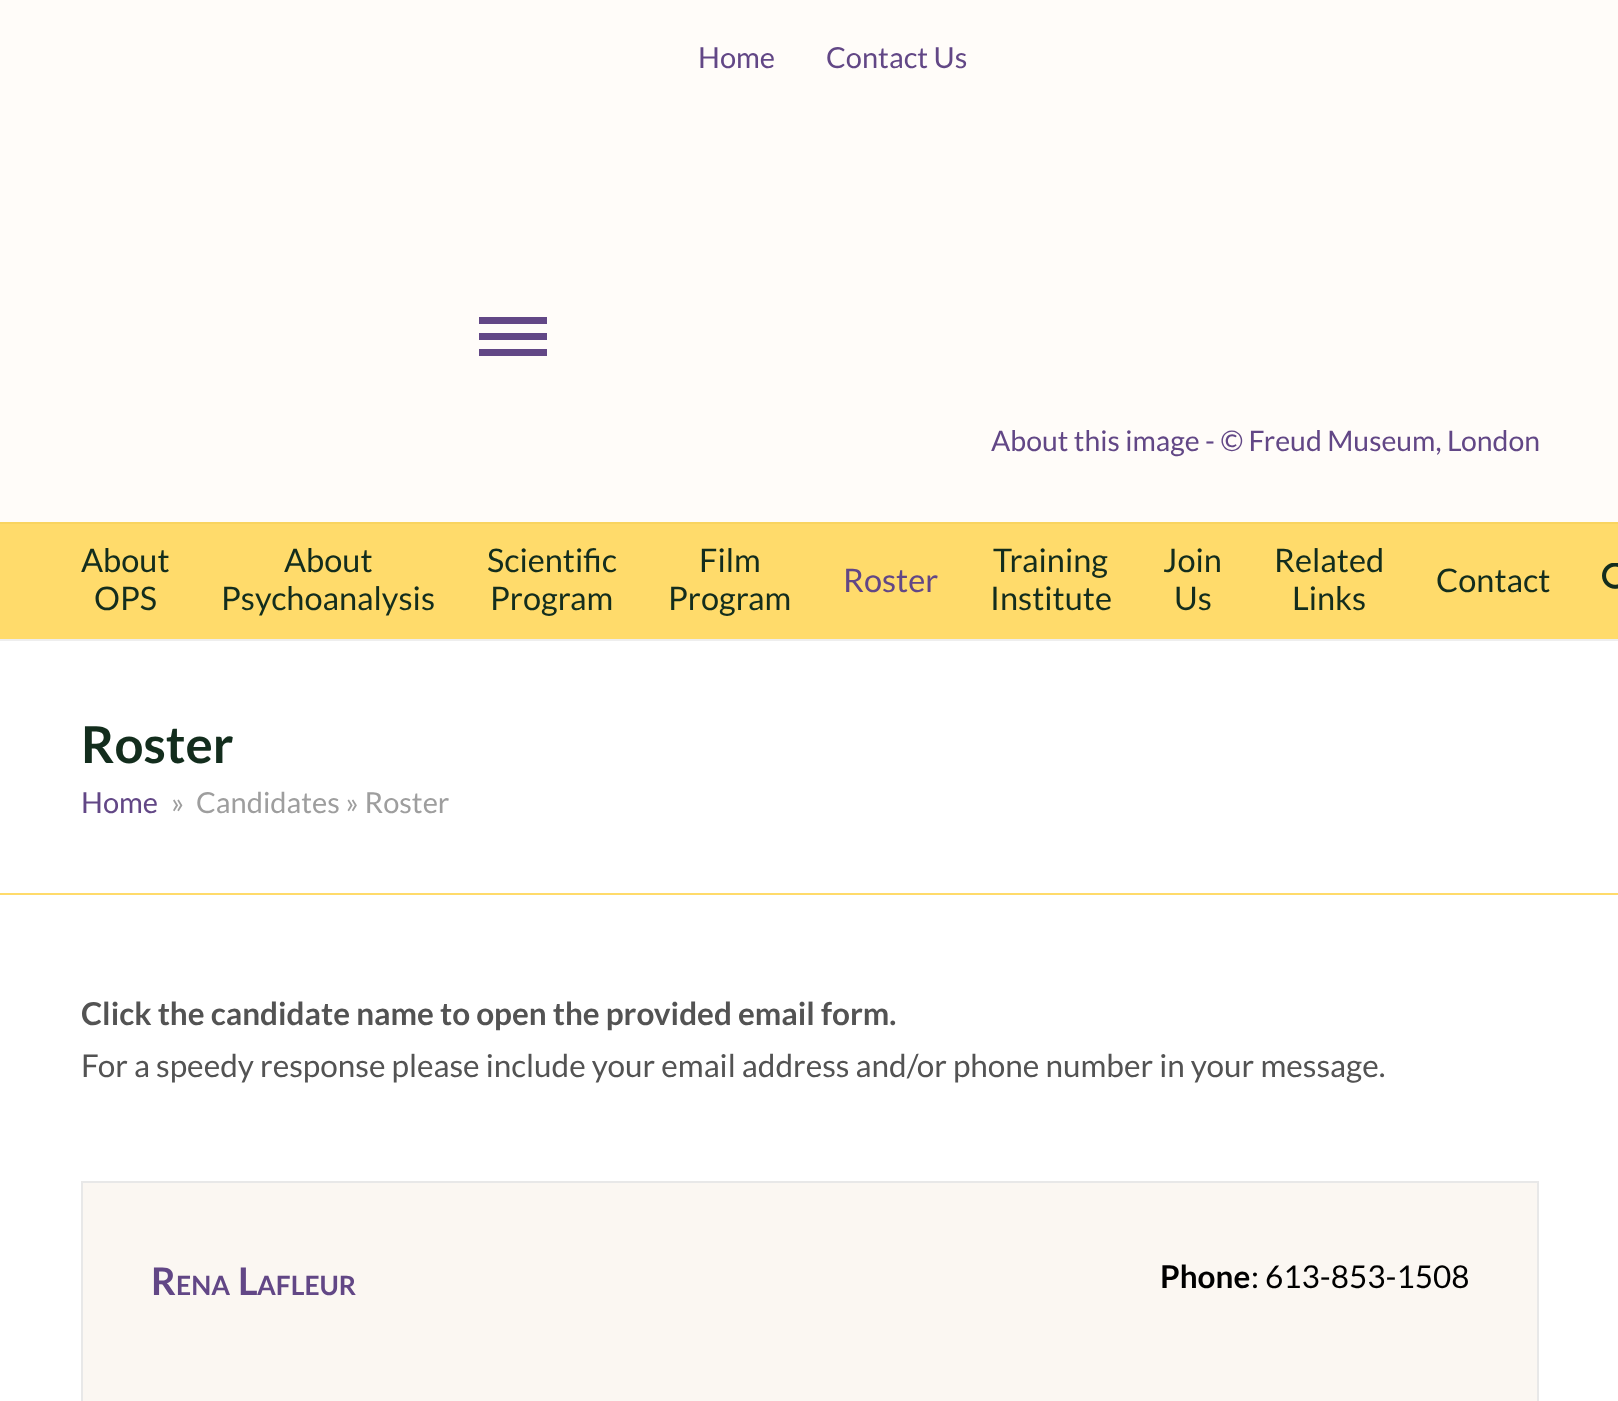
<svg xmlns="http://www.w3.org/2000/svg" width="1618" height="1401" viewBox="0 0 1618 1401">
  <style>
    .t1 { font: 29px Lato; fill: #624786; }
    .t2 { font: 28.4px Lato; fill: #624786; }
    .t3 { font: 32.5px Lato; fill: #132d1d; }
    .t4 { font: 32.5px Lato; fill: #624786; }
    .t5 { font: bold 51px Lato; fill: #132d1d; }
    .t6 { font: 29px Lato; fill: #9e9e9e; }
    .t7 { font: bold 31.5px Lato; fill: #535353; }
    .t8 { font: 31.5px Lato; fill: #535353; }
    .t9 { font: bold 38px Lato; fill: #624786; }
    .t10 { font: bold 26.5px Lato; fill: #624786; }
    .t11 { font: bold 31.5px Lato; fill: #000; }
    .t12 { font: 31.5px Lato; fill: #000; }
  </style>
  <rect width="100%" height="100%" fill="#fff"/>
  <rect x="0" y="0" width="1618" height="522" fill="#fffcf9"/>
  <text x="698" y="68" class="t1">Home</text>
  <text x="826" y="68" class="t1">Contact Us</text>
  <rect x="0" y="524" width="1618" height="115" fill="#ffdb6b"/>
  <rect x="479" y="333" width="68" height="7" fill="#624786"/>
  <rect x="479" y="317" width="68" height="7" fill="#624786"/>
  <rect x="479" y="349" width="68" height="7" fill="#624786"/>
  <text x="991" y="451" class="t2">About this image - © Freud Museum, London</text>
  <rect x="0" y="522" width="1618" height="2" fill="#f9d460"/>
  <text x="81" y="572" class="t3">About</text>
  <text x="94" y="610" class="t3">OPS</text>
  <text x="284" y="572" class="t3">About</text>
  <text x="221" y="610" class="t3">Psychoanalysis</text>
  <text x="487" y="572" class="t3">Scientific</text>
  <text x="490" y="610" class="t3">Program</text>
  <text x="699" y="572" class="t3">Film</text>
  <text x="668" y="610" class="t3">Program</text>
  <text x="843" y="592" class="t4">Roster</text>
  <text x="993" y="572" class="t3">Training</text>
  <text x="990" y="610" class="t3">Institute</text>
  <text x="1163" y="572" class="t3">Join</text>
  <text x="1174" y="610" class="t3">Us</text>
  <text x="1274" y="572" class="t3">Related</text>
  <text x="1292" y="610" class="t3">Links</text>
  <text x="1436" y="592" class="t3">Contact</text>
  <image x="1602" y="563" width="16" height="26" href="images/1.png"/>
  <rect x="0" y="639" width="1618" height="2" fill="#eee"/>
  <rect x="0" y="893" width="1618" height="2" fill="#ffdb6b"/>
  <text x="81" y="763" class="t5">Roster</text>
  <text x="81" y="813" class="t1">Home</text>
  <text x="171" y="813" class="t6">»</text>
  <text x="196" y="813" class="t6">Candidates » Roster</text>
  <text x="81" y="1025" class="t7">Click the candidate name to open the provided email form.</text>
  <text x="81" y="1077" class="t8">For a speedy response please include your email address and/or phone number in your message.</text>
  <rect x="82" y="1182" width="1456" height="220" fill="#fbf7f2" stroke="#e8e8e8" stroke-width="2"/>
  <text x="151" y="1295" class="t9">R</text>
  <text x="176" y="1295" class="t10">ENA</text>
  <text x="238" y="1295" class="t9">L</text>
  <text x="257" y="1295" class="t10">AFLEUR</text>
  <text x="1160" y="1288" class="t11">Phone</text>
  <text x="1251" y="1288" class="t12">: 613-853-1508</text>
</svg>
